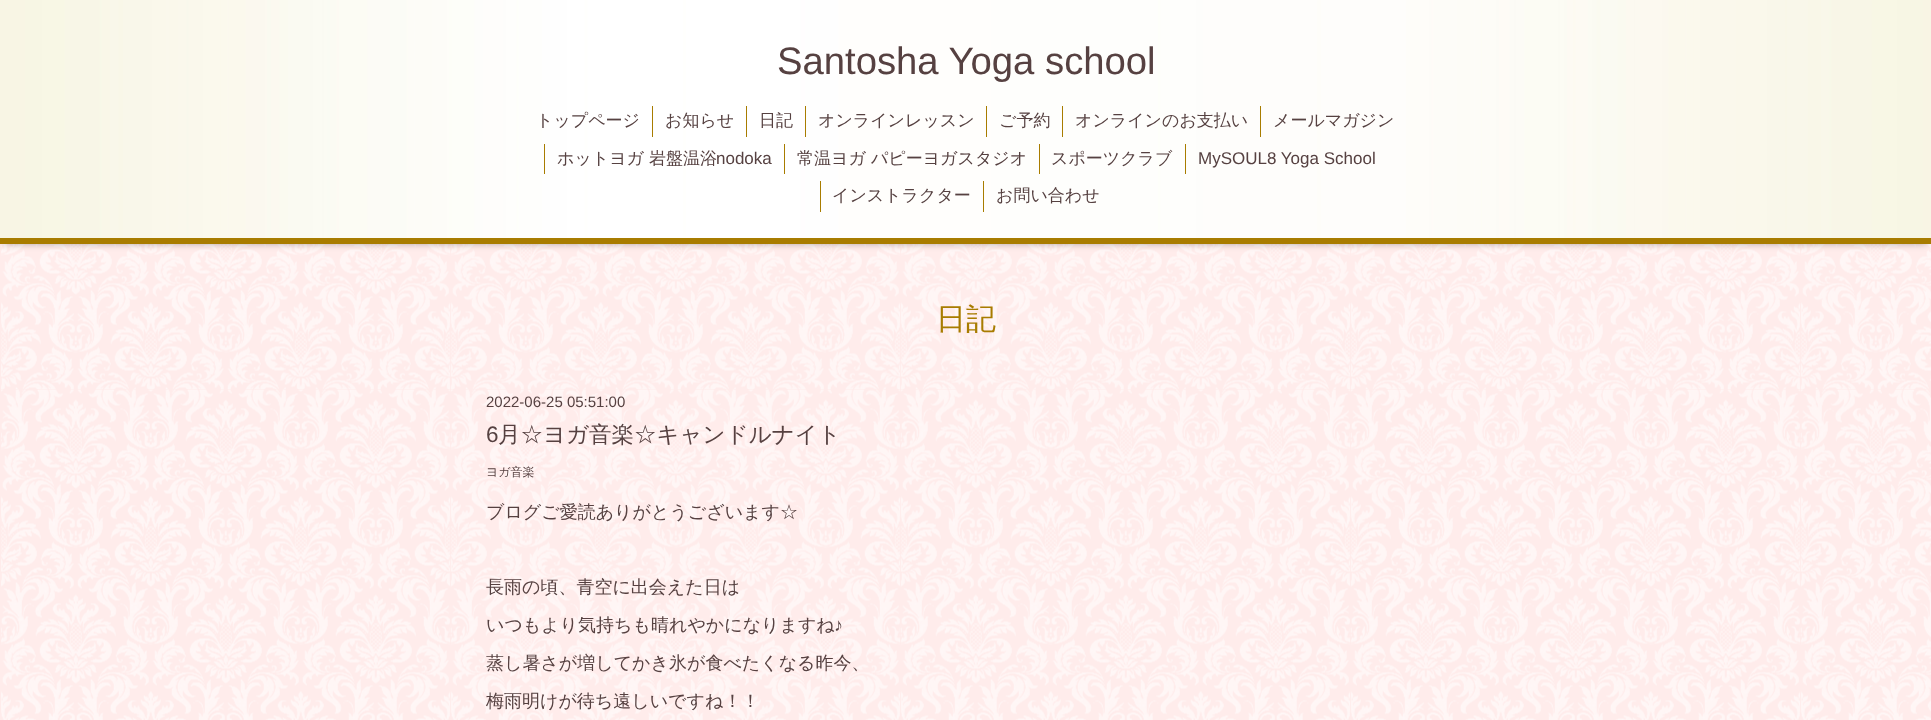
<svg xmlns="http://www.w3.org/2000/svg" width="1931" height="720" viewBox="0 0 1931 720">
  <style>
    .t1 { font: 38.25px Liberation Sans; fill: #564141; }
    .t2 { font: 500 17px WenQuanYi Zen Hei; fill: #564141; }
    .t3 { font: 17px Liberation Sans; fill: #564141; }
    .t4 { font: 500 30px WenQuanYi Zen Hei; fill: #a87c00; }
    .t5 { font: 15px Liberation Sans; fill: #564141; }
    .t6 { font: 22.5px Liberation Sans; fill: #564141; }
    .t7 { font: 500 22.5px WenQuanYi Zen Hei; fill: #564141; }
    .t8 { font: 500 12px WenQuanYi Zen Hei; fill: #564141; }
    .t9 { font: 500 18px WenQuanYi Zen Hei; fill: #564141; }
    .t10 { font: 18px Liberation Sans; fill: #564141; }
  </style>
  <rect width="100%" height="100%" fill="#ffeceb"/>
  <image x="1" y="244" width="1930" height="476" href="images/1.png"/>
  <rect x="4" y="5" width="1923" height="236" fill="#00000099" filter="blur(5px)"/>
  <image x="0" y="0" width="1931" height="238" href="images/2.png"/>
  <rect x="0" y="238" width="1931" height="6" fill="#a87c00"/>
  <text x="777" y="74" class="t1">Santosha Yoga school</text>
  <text x="536" y="126" class="t2">トップページ</text>
  <rect x="652" y="106" width="1" height="31" fill="#a87c00"/>
  <text x="665" y="126" class="t2">お知らせ</text>
  <rect x="746" y="106" width="1" height="31" fill="#a87c00"/>
  <text x="759" y="126" class="t2">日記</text>
  <rect x="805" y="106" width="1" height="31" fill="#a87c00"/>
  <text x="818" y="126" class="t2">オンラインレッスン</text>
  <rect x="986" y="106" width="1" height="31" fill="#a87c00"/>
  <text x="999" y="126" class="t2">ご予約</text>
  <rect x="1062" y="106" width="1" height="31" fill="#a87c00"/>
  <text x="1075" y="126" class="t2">オンラインのお支払い</text>
  <rect x="1260" y="106" width="1" height="31" fill="#a87c00"/>
  <text x="1273" y="126" class="t2">メールマガジン</text>
  <rect x="544" y="144" width="1" height="30" fill="#a87c00"/>
  <text x="557" y="164" class="t2">ホットヨガ 岩盤温浴</text>
  <text x="716" y="164" class="t3">nodoka</text>
  <rect x="784" y="144" width="1" height="30" fill="#a87c00"/>
  <text x="797" y="164" class="t2">常温ヨガ パピーヨガスタジオ</text>
  <rect x="1039" y="144" width="1" height="30" fill="#a87c00"/>
  <text x="1051" y="164" class="t2">スポーツクラブ</text>
  <rect x="1185" y="144" width="1" height="30" fill="#a87c00"/>
  <text x="1198" y="164" class="t3">MySOUL8 Yoga School</text>
  <rect x="820" y="181" width="1" height="31" fill="#a87c00"/>
  <text x="832" y="201" class="t2">インストラクター</text>
  <rect x="983" y="181" width="1" height="31" fill="#a87c00"/>
  <text x="996" y="201" class="t2">お問い合わせ</text>
  <text x="936" y="329" class="t4">日記</text>
  <text x="486" y="407" class="t5">2022-06-25 05:51:00</text>
  <text x="486" y="442" class="t6">6</text>
  <text x="498" y="442" class="t7">月☆ヨガ音楽☆キャンドルナイト</text>
  <text x="486" y="476" class="t8">ヨガ音楽</text>
  <text x="486" y="518" class="t9">ブログご愛読ありがとうございます☆</text>
  <text x="486" y="593" class="t9">長雨の頃、青空に出会えた日は</text>
  <text x="486" y="631" class="t9">いつもより気持ちも晴れやかになりますね</text>
  <text x="834" y="631" class="t10">♪</text>
  <text x="486" y="669" class="t9">蒸し暑さが増してかき氷が食べたくなる昨今、</text>
  <text x="486" y="707" class="t9">梅雨明けが待ち遠しいですね！！</text>
</svg>
